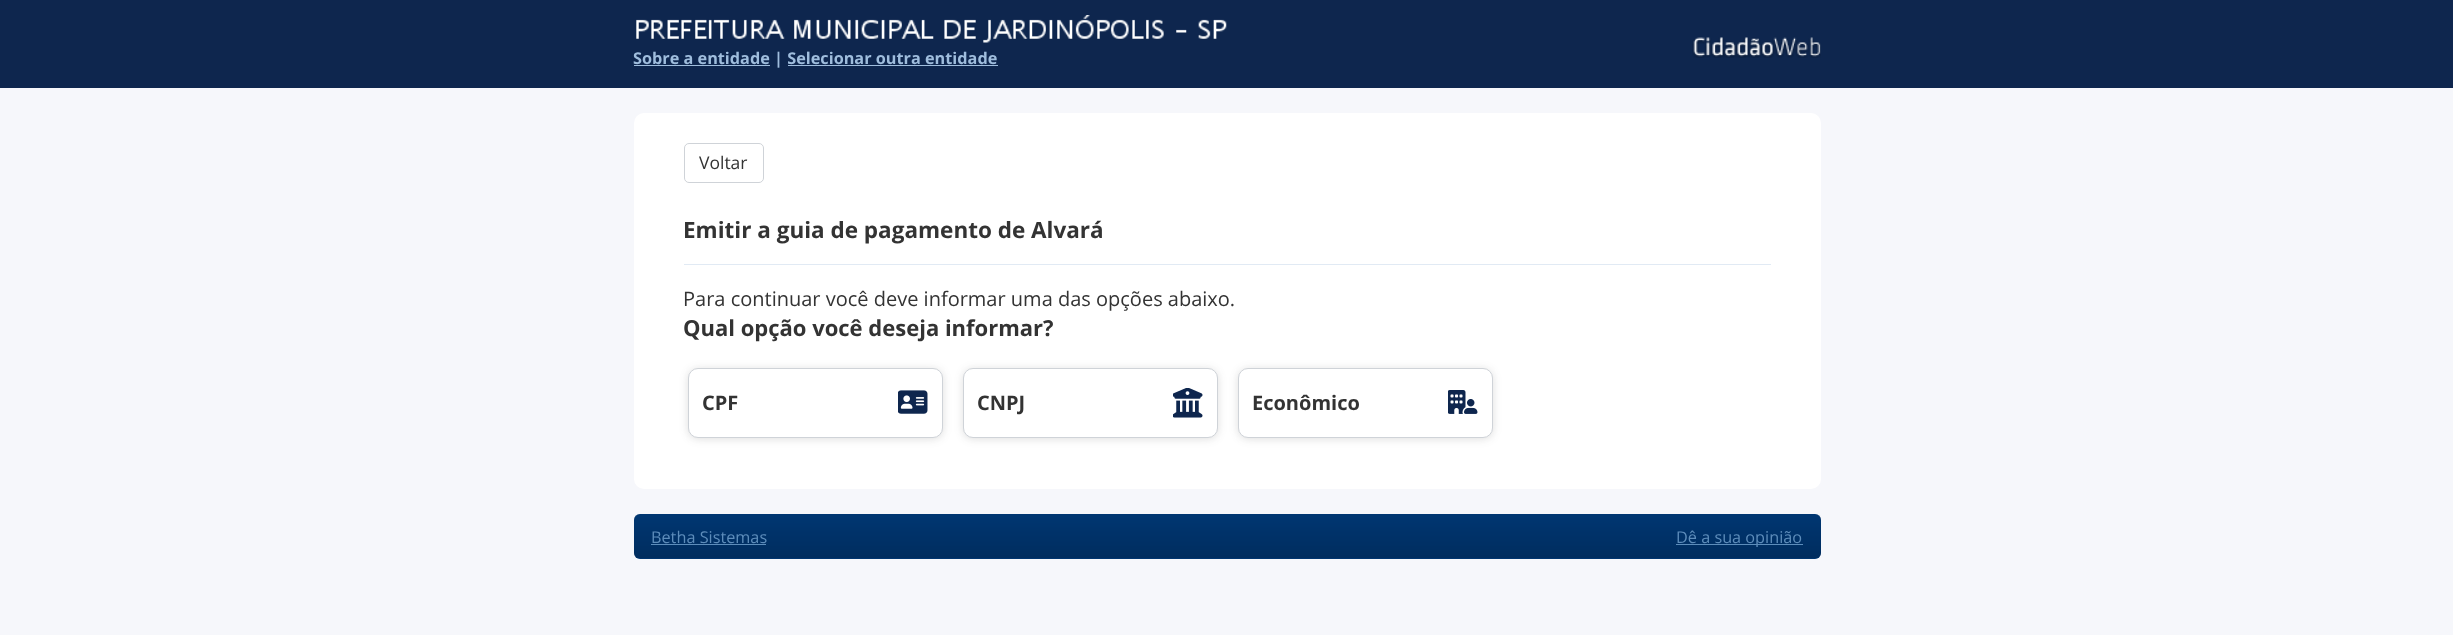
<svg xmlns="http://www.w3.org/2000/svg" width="2453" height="635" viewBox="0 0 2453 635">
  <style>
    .t1 { font: bold 16.25px Open Sans; fill: #9fbddd; }
    .t2 { font: 17.5px Open Sans; fill: #333; }
    .t3 { font: bold 22.5px Open Sans; fill: #333; }
    .t4 { font: 20px Open Sans; fill: #333; }
    .t5 { font: bold 22px Open Sans; fill: #333; }
    .t6 { font: bold 20px Open Sans; fill: #333; }
    .t7 { font: 16.25px Open Sans; fill: #5d8dbb; }
  </style>
  <rect width="100%" height="100%" fill="#f6f7fb"/>
  <rect x="0" y="0" width="2453" height="88" fill="#0e264e"/>
  <image x="636" y="15" width="591" height="28" href="images/1.png"/>
  <rect x="634" y="65" width="136" height="1" fill="#9fbddd"/>
  <text x="633" y="64" class="t1">Sobre a entidade | Selecionar outra entidade</text>
  <rect x="788" y="65" width="210" height="1" fill="#9fbddd"/>
  <image x="1692" y="37" width="129" height="21" href="images/2.png"/>
  <rect x="634" y="113" width="1187" height="376" rx="10" fill="#fff"/>
  <rect x="684.5" y="143.5" width="79" height="39" rx="4.5" fill="none" stroke="#cfd3d8"/>
  <text x="699" y="169" class="t2">Voltar</text>
  <text x="683" y="238" class="t3">Emitir a guia de pagamento de Alvará</text>
  <rect x="684" y="264" width="1087" height="1" fill="#e1eaf4"/>
  <text x="683" y="306" class="t4">Para continuar você deve informar uma das opções abaixo.</text>
  <text x="683" y="336" class="t5">Qual opção você deseja informar?</text>
  <rect x="688" y="369" width="255" height="70" rx="10" fill="#33333329" filter="blur(4px)"/>
  <rect x="688.5" y="368.5" width="254" height="69" rx="9.5" fill="#fff" stroke="#cfd3d8"/>
  <image x="898" y="390" width="30" height="24" href="images/3.png"/>
  <text x="702" y="410" class="t6">CPF</text>
  <rect x="963" y="369" width="255" height="70" rx="10" fill="#33333329" filter="blur(4px)"/>
  <rect x="963.5" y="368.5" width="254" height="69" rx="9.5" fill="#fff" stroke="#cfd3d8"/>
  <image x="1173" y="388" width="30" height="30" href="images/4.png"/>
  <text x="977" y="410" class="t6">CNPJ</text>
  <rect x="1238" y="369" width="255" height="70" rx="10" fill="#33333329" filter="blur(4px)"/>
  <rect x="1238.5" y="368.5" width="254" height="69" rx="9.5" fill="#fff" stroke="#cfd3d8"/>
  <image x="1448" y="390" width="30" height="24" href="images/5.png"/>
  <text x="1252" y="410" class="t6">Econômico</text>
  <rect x="634" y="514" width="1187" height="45" rx="6" fill="#004086"/>
  <image x="634" y="514" width="1187" height="45" href="images/6.png"/>
  <text x="651" y="543" class="t7">Betha Sistemas</text>
  <rect x="651" y="544" width="115" height="1" fill="#5d8dbb"/>
  <rect x="1676" y="544" width="127" height="1" fill="#5d8dbb"/>
  <text x="1676" y="543" class="t7">Dê a sua opinião</text>
</svg>
